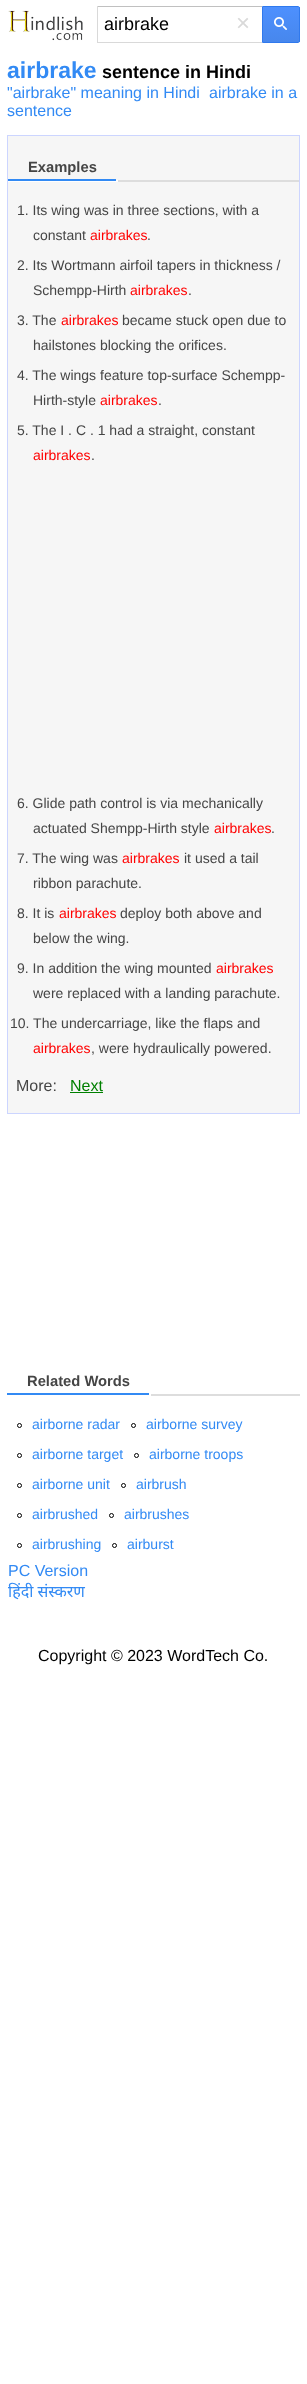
<svg xmlns="http://www.w3.org/2000/svg" width="307" height="2384" viewBox="0 0 307 2384">
  <style>
    .t1 { font: 18px Liberation Sans; fill: #000; }
    .t2 { font: 24px Liberation Sans; fill: #d9d9d9; }
    .t3 { font: bold 23px Liberation Sans; fill: #328af4; }
    .t4 { font: bold 18px Liberation Sans; fill: #000; }
    .t5 { font: 16px Liberation Sans; fill: #328af4; }
    .t6 { font: bold 14.75px Liberation Sans; fill: #454545; }
    .t7 { font: 14px Liberation Sans; fill: #454545; }
    .t8 { font: 14px Liberation Sans; fill: #f00; }
    .t9 { font: 16px Liberation Sans; fill: #454545; }
    .t10 { font: 16px Liberation Sans; fill: #008000; }
    .t11 { font: 14px Liberation Sans; fill: #328af4; }
    .t12 { font: 16px Noto Sans; fill: #328af4; }
    .t13 { font: 16px Liberation Sans; fill: #000; }
  </style>
  <defs>
    <linearGradient id="g1" gradientUnits="userSpaceOnUse" x1="263" y1="7" x2="263" y2="42"><stop offset="0" stop-color="#4d90fe"/><stop offset="1" stop-color="#4787ed"/></linearGradient>
  </defs>
  <rect width="100%" height="100%" fill="#fff"/>
  <image x="8" y="10" width="75" height="31" href="images/1.png"/>
  <rect x="97" y="6" width="165" height="1" fill="#c0c0c0"/>
  <rect x="97" y="42" width="165" height="1" fill="#d9d9d9"/>
  <rect x="97" y="6" width="1" height="37" fill="#d9d9d9"/>
  <text x="104" y="30" class="t1">airbrake</text>
  <text x="236" y="31" class="t2">×</text>
  <rect x="263" y="7" width="37" height="35" fill="url(#g1)"/>
  <path d="M262.5 6.5H298C299 6.5 299.5 7 299.5 8V41C299.5 42 299 42.5 298 42.5H262.5Z" fill="none" stroke="#3079ed"/>
  <image x="274" y="17" width="13" height="13" href="images/2.png"/>
  <text x="7" y="78" class="t3">airbrake</text>
  <text x="102" y="78" class="t4">sentence in Hindi</text>
  <text x="7" y="98" class="t5">"airbrake" meaning in Hindi</text>
  <text x="209" y="98" class="t5">airbrake in a</text>
  <text x="7" y="116" class="t5">sentence</text>
  <rect x="7.5" y="135.5" width="292" height="978" fill="#f6f6f6" stroke="#ccd5ff"/>
  <rect x="118" y="180" width="181" height="2" fill="#ddd"/>
  <rect x="8" y="180" width="110" height="2" fill="#fff"/>
  <rect x="8" y="179" width="108" height="2" fill="#328af4"/>
  <text x="28" y="172" class="t6">Examples</text>
  <text x="17" y="215" class="t7">1. Its wing was in three sections, with a</text>
  <text x="33" y="240" class="t7">constant</text>
  <text x="90" y="240" class="t8">airbrakes</text>
  <text x="147" y="240" class="t7">.</text>
  <text x="17" y="270" class="t7">2. Its Wortmann airfoil tapers in thickness /</text>
  <text x="33" y="295" class="t7">Schempp-Hirth</text>
  <text x="130" y="295" class="t8">airbrakes</text>
  <text x="188" y="295" class="t7">.</text>
  <text x="17" y="325" class="t7">3. The</text>
  <text x="61" y="325" class="t8">airbrakes</text>
  <text x="122" y="325" class="t7">became stuck open due to</text>
  <text x="33" y="350" class="t7">hailstones blocking the orifices.</text>
  <text x="17" y="380" class="t7">4. The wings feature top-surface Schempp-</text>
  <text x="33" y="405" class="t7">Hirth-style</text>
  <text x="100" y="405" class="t8">airbrakes</text>
  <text x="158" y="405" class="t7">.</text>
  <text x="17" y="435" class="t7">5. The I . C . 1 had a straight, constant</text>
  <text x="33" y="460" class="t8">airbrakes</text>
  <text x="91" y="460" class="t7">.</text>
  <text x="17" y="808" class="t7">6. Glide path control is via mechanically</text>
  <text x="33" y="833" class="t7">actuated Shempp-Hirth style</text>
  <text x="214" y="833" class="t8">airbrakes</text>
  <text x="271" y="833" class="t7">.</text>
  <text x="17" y="863" class="t7">7. The wing was</text>
  <text x="122" y="863" class="t8">airbrakes</text>
  <text x="184" y="863" class="t7">it used a tail</text>
  <text x="33" y="888" class="t7">ribbon parachute.</text>
  <text x="17" y="918" class="t7">8. It is</text>
  <text x="59" y="918" class="t8">airbrakes</text>
  <text x="120" y="918" class="t7">deploy both above and</text>
  <text x="33" y="943" class="t7">below the wing.</text>
  <text x="17" y="973" class="t7">9. In addition the wing mounted</text>
  <text x="216" y="973" class="t8">airbrakes</text>
  <text x="33" y="998" class="t7">were replaced with a landing parachute.</text>
  <text x="10" y="1028" class="t7">10. The undercarriage, like the flaps and</text>
  <text x="33" y="1053" class="t8">airbrakes</text>
  <text x="91" y="1053" class="t7">, were hydraulically powered.</text>
  <text x="16" y="1091" class="t9">More:</text>
  <text x="70" y="1091" class="t10">Next</text>
  <rect x="70" y="1092" width="33" height="1" fill="#008000"/>
  <rect x="151" y="1394" width="149" height="2" fill="#ddd"/>
  <rect x="7" y="1393" width="142" height="2" fill="#328af4"/>
  <text x="27" y="1386" class="t6">Related Words</text>
  <circle cx="19.5" cy="1425.5" r="2" fill="none" stroke="#000"/>
  <text x="32" y="1429" class="t11">airborne radar</text>
  <circle cx="133.5" cy="1425.5" r="2" fill="none" stroke="#000"/>
  <text x="146" y="1429" class="t11">airborne survey</text>
  <circle cx="19.5" cy="1455.5" r="2" fill="none" stroke="#000"/>
  <text x="32" y="1459" class="t11">airborne target</text>
  <circle cx="136.5" cy="1455.5" r="2" fill="none" stroke="#000"/>
  <text x="149" y="1459" class="t11">airborne troops</text>
  <circle cx="19.5" cy="1485.5" r="2" fill="none" stroke="#000"/>
  <text x="32" y="1489" class="t11">airborne unit</text>
  <circle cx="123.5" cy="1485.5" r="2" fill="none" stroke="#000"/>
  <text x="136" y="1489" class="t11">airbrush</text>
  <circle cx="19.5" cy="1515.5" r="2" fill="none" stroke="#000"/>
  <text x="32" y="1519" class="t11">airbrushed</text>
  <circle cx="111.5" cy="1515.5" r="2" fill="none" stroke="#000"/>
  <text x="124" y="1519" class="t11">airbrushes</text>
  <circle cx="19.5" cy="1545.5" r="2" fill="none" stroke="#000"/>
  <text x="32" y="1549" class="t11">airbrushing</text>
  <circle cx="114.5" cy="1545.5" r="2" fill="none" stroke="#000"/>
  <text x="127" y="1549" class="t11">airburst</text>
  <text x="8" y="1576" class="t5">PC Version</text>
  <text x="8" y="1597" class="t12">हिंदी संस्करण</text>
  <text x="38" y="1661" class="t13">Copyright © 2023 WordTech Co.</text>
</svg>
